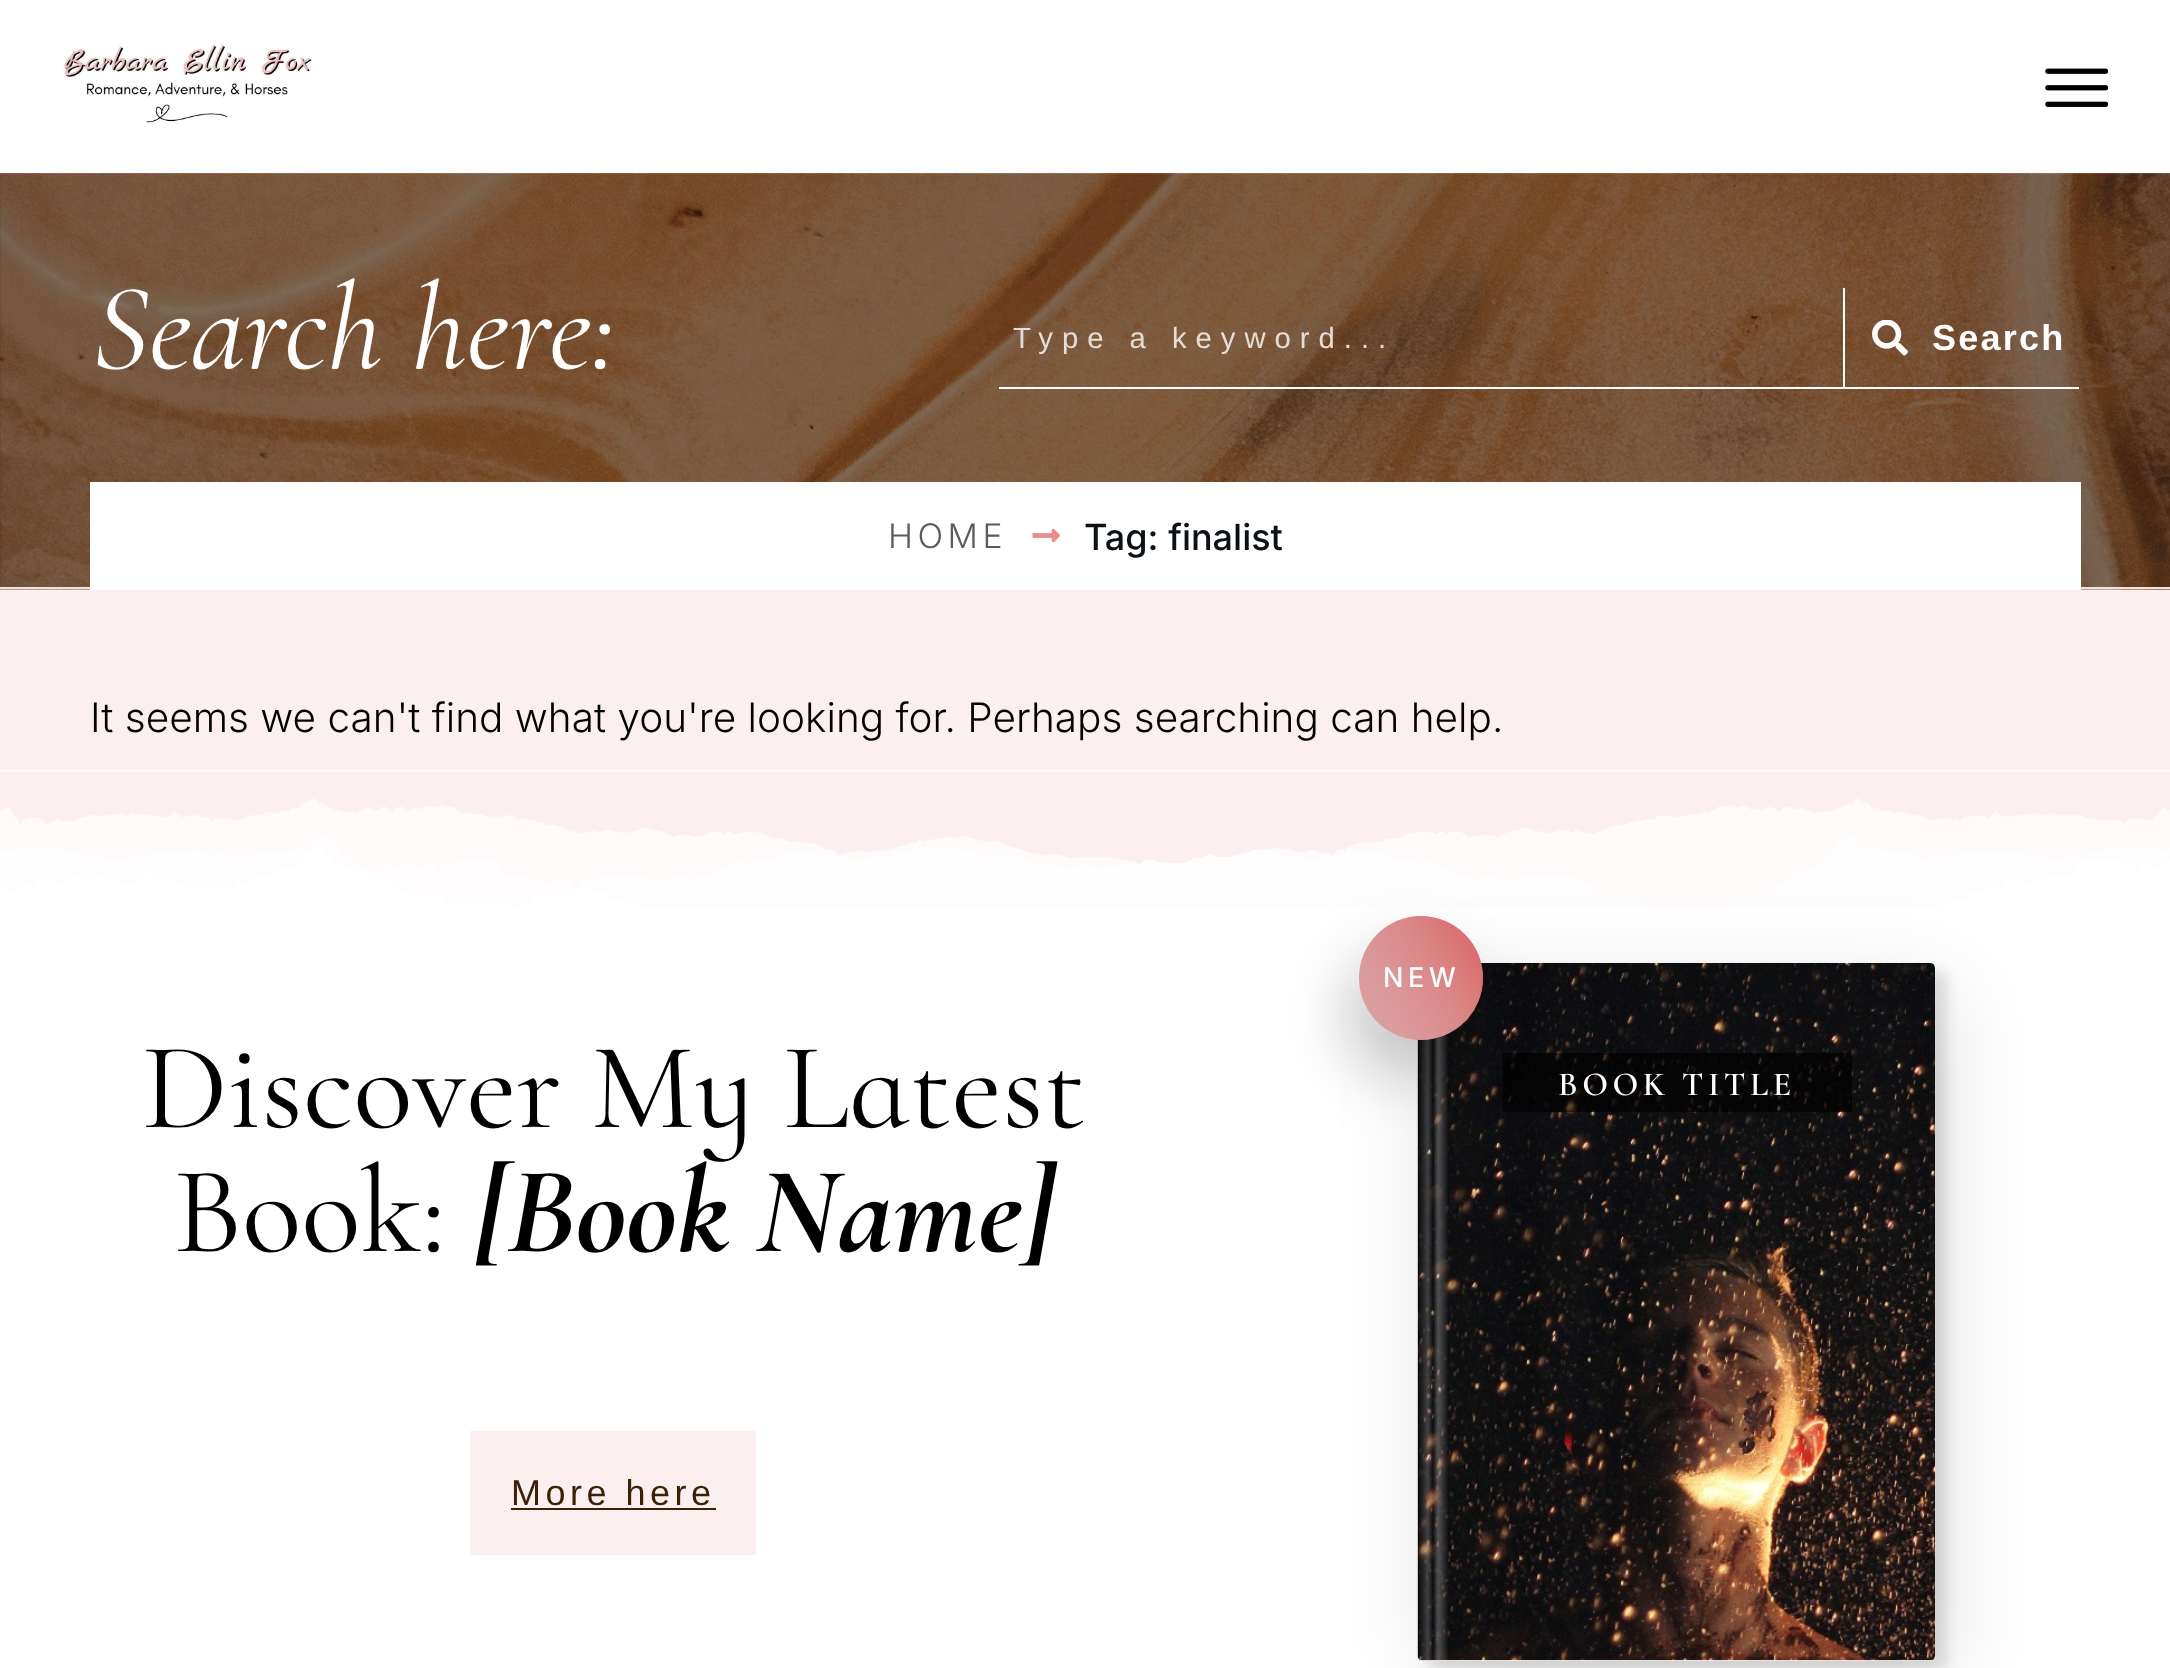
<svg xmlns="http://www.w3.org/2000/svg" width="2170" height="1668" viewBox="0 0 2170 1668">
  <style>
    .t1 { font: italic 123.75px Cormorant Infant; fill: #fff; }
    .t2 { font: 29.25px Liberation Sans; letter-spacing: 9px; fill: #e5ded8; }
    .t3 { font: bold 36px Liberation Sans; letter-spacing: 2.25px; fill: #fff; }
    .t4 { font: 300 33.75px Inter; letter-spacing: 4.5px; fill: #5f5959; }
    .t5 { font: 500 36px Inter; fill: #0c1115; }
    .t6 { font: 300 40.5px Inter; fill: #000; }
    .t7 { font: 500 27px Inter; letter-spacing: 4.5px; fill: #fff; }
    .t8 { font: 600 33.75px Cormorant Infant; letter-spacing: 4.5px; fill: #fff; }
    .t9 { font: 123.75px Cormorant Infant; fill: #000; }
    .t10 { font: italic bold 123.75px Cormorant Infant; fill: #000; }
    .t11 { font: 36px Liberation Sans; letter-spacing: 4.5px; fill: #3d2105; }
  </style>
  <defs>
    <linearGradient id="g1" gradientUnits="userSpaceOnUse" x1="1348" y1="1020" x2="1494" y2="935"><stop offset="0" stop-color="#f48b8b" stop-opacity="0.04"/><stop offset="1" stop-color="#da1b1b" stop-opacity="0.5"/></linearGradient>
  </defs>
  <rect width="100%" height="100%" fill="#fbeff0"/>
  <rect x="0" y="0" width="2170" height="173" fill="#fff"/>
  <image x="61" y="44" width="252" height="80" href="images/1.png"/>
  <image x="2045" y="68" width="63" height="39" href="images/2.png"/>
  <rect x="0" y="173" width="2170" height="417" fill="#d7a2a2"/>
  <image x="0" y="173" width="2170" height="417" href="images/3.png"/>
  <rect x="0" y="587" width="2170" height="2" fill="#e6e6e6"/>
  <text x="92" y="368" class="t1">Search here:</text>
  <rect x="999" y="387" width="1080" height="2" fill="#fff"/>
  <text x="1013" y="348" class="t2">Type a keyword...</text>
  <rect x="1843" y="288" width="2" height="101" fill="#fff"/>
  <image x="1872" y="320" width="36" height="36" href="images/4.png"/>
  <text x="1932" y="350" class="t3">Search</text>
  <rect x="90" y="482" width="1991" height="108" fill="#fff"/>
  <text x="888" y="548" class="t4">HOME</text>
  <image x="1032" y="528" width="28" height="15" href="images/5.png"/>
  <text x="1084" y="550" class="t5">Tag: finalist</text>
  <text x="90" y="732" class="t6">It seems we can't find what you're looking for. Perhaps searching can help.</text>
  <rect x="0" y="770" width="2170" height="898" fill="#fff"/>
  <image x="0" y="771" width="2170" height="137" href="images/6.png"/>
  <rect x="1429" y="972" width="517" height="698" rx="5" fill="#0000001f" filter="blur(7px)"/>
  <rect x="1431" y="986" width="518" height="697" rx="5" fill="#0000001c" filter="blur(47px)"/>
  <rect x="1418" y="963" width="517" height="698" rx="5" fill="#fff"/>
  <image x="1417" y="963" width="518" height="698" href="images/7.png"/>
  <rect x="1503" y="1053" width="349" height="59" fill="#000000a1"/>
  <rect x="1346" y="952" width="123" height="124" rx="61.5" fill="#00000038" filter="blur(32.5px)"/>
  <circle cx="1421" cy="978" r="62" fill="#d7a2a2"/>
  <circle cx="1421" cy="978" r="62" fill="url(#g1)"/>
  <text x="1383" y="987" class="t7">NEW</text>
  <text x="1558" y="1095" class="t8">BOOK TITLE</text>
  <text x="142" y="1127" class="t9">Discover My Latest</text>
  <text x="173" y="1251" class="t9">Book:</text>
  <text x="475" y="1251" class="t10">[Book Name]</text>
  <rect x="470" y="1431" width="286" height="124" fill="#fbeff0"/>
  <text x="511" y="1505" class="t11">More here</text>
  <rect x="511" y="1508" width="205" height="2" fill="#3d2105"/>
</svg>
